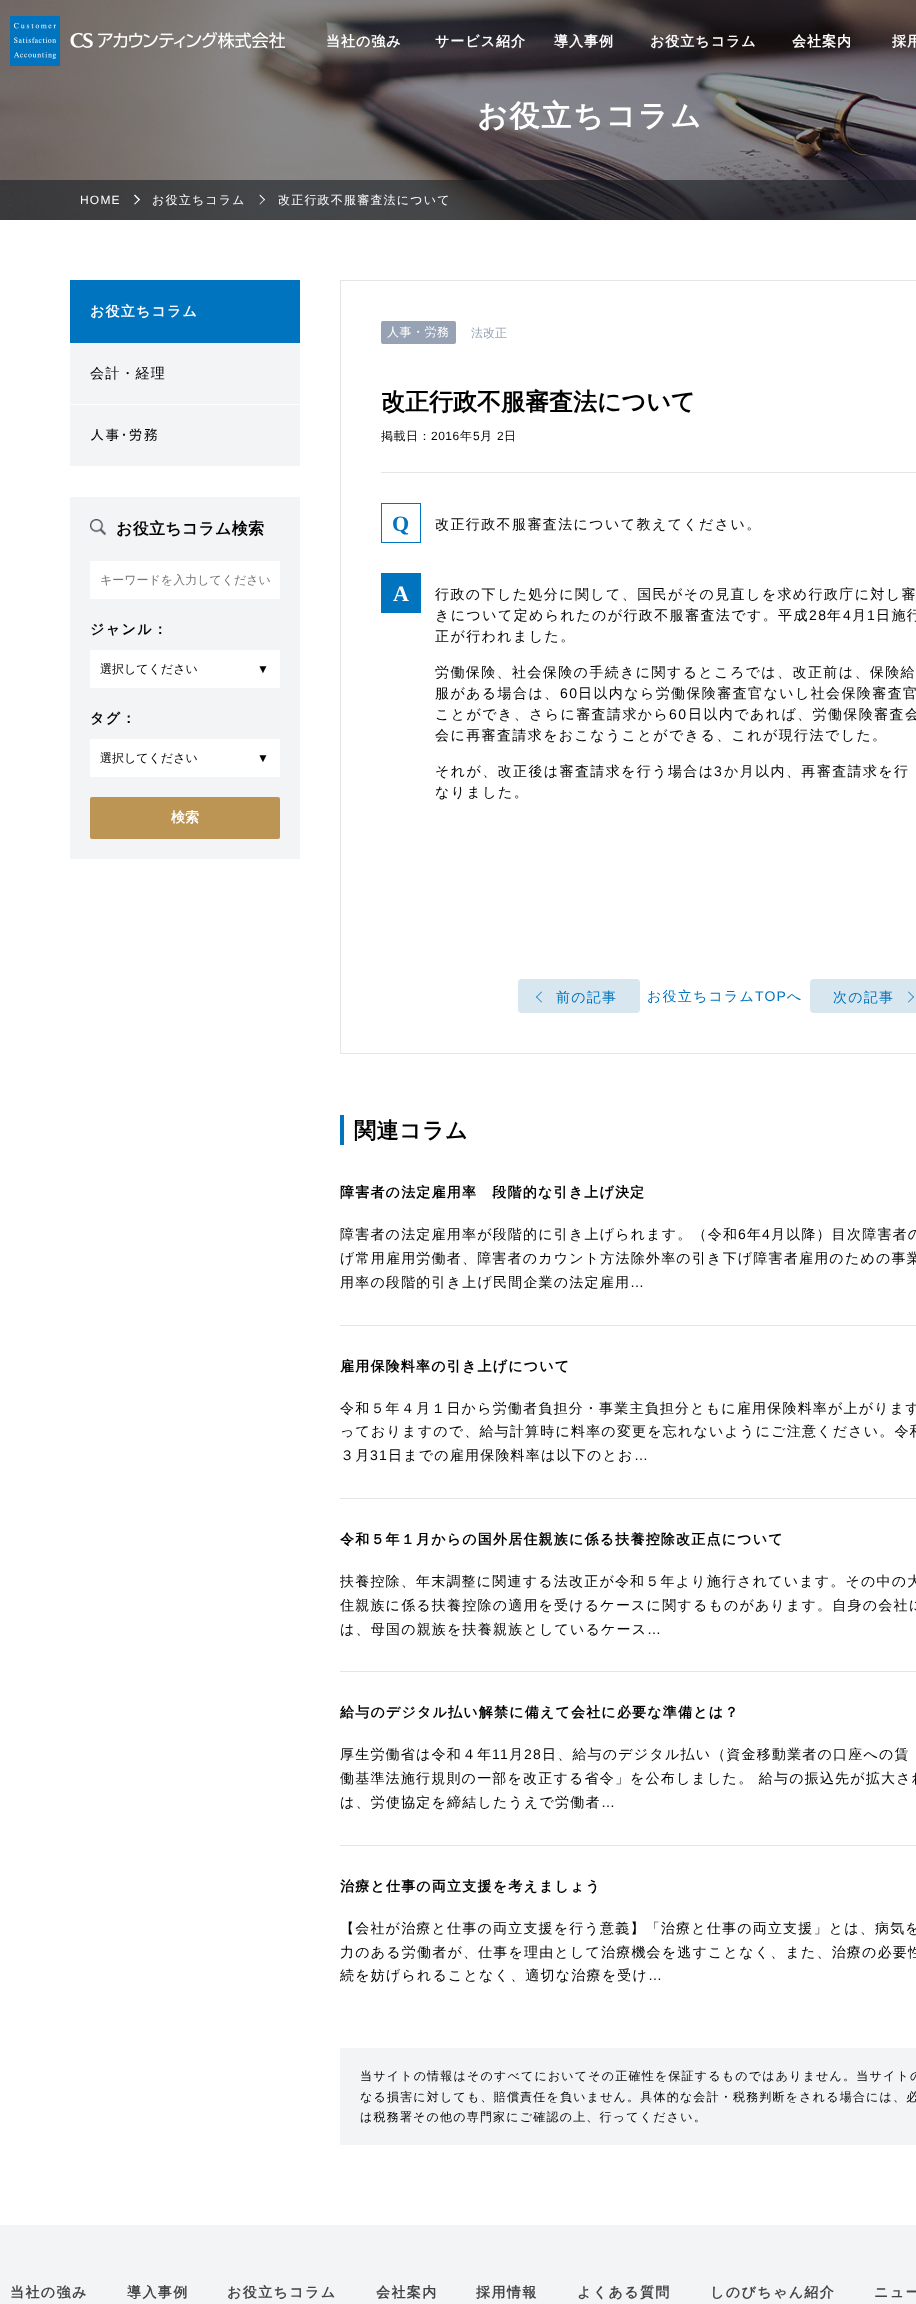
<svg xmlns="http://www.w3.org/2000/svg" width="916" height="2304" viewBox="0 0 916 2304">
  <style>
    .t1 { font: bold 14px WenQuanYi Zen Hei; letter-spacing: 1px; fill: #fff; }
    .t2 { font: bold 30px WenQuanYi Zen Hei; letter-spacing: 1.75px; fill: #fff; }
    .t3 { font: 12px Liberation Sans; letter-spacing: 1.2px; fill: #fff; }
    .t4 { font: 500 12px WenQuanYi Zen Hei; letter-spacing: 1.2px; fill: #fff; }
    .t5 { font: bold 14px WenQuanYi Zen Hei; letter-spacing: 1.2px; fill: #fff; }
    .t6 { font: 500 14px WenQuanYi Zen Hei; letter-spacing: 1.2px; fill: #000; }
    .t7 { font: 14px IPAPGothic; letter-spacing: 1.2px; fill: #000; }
    .t8 { font: bold 16px WenQuanYi Zen Hei; letter-spacing: 0.25px; fill: #000; }
    .t9 { font: 500 12px WenQuanYi Zen Hei; fill: #757575; }
    .t10 { font: bold 14px WenQuanYi Zen Hei; letter-spacing: 1.4px; fill: #000; }
    .t11 { font: 500 12px WenQuanYi Zen Hei; fill: #000; }
    .t12 { font: 12px Liberation Sans; letter-spacing: 1.2px; fill: #000; }
    .t13 { font: bold 14px WenQuanYi Zen Hei; fill: #fff; }
    .t14 { font: 500 12px WenQuanYi Zen Hei; letter-spacing: 0.5px; fill: #fff; }
    .t15 { font: 500 12px WenQuanYi Zen Hei; fill: #97a3b4; }
    .t16 { font: bold 24px WenQuanYi Zen Hei; fill: #000; }
    .t17 { font: 500 12px WenQuanYi Zen Hei; letter-spacing: 0.5px; fill: #000; }
    .t18 { font: 12px Liberation Sans; letter-spacing: 0.5px; fill: #000; }
    .t19 { font: bold 22px Liberation Serif; fill: #0074bf; }
    .t20 { font: 500 14px WenQuanYi Zen Hei; letter-spacing: 1.4px; fill: #000; }
    .t21 { font: bold 22px Liberation Serif; fill: #fff; }
    .t22 { font: 14px Liberation Sans; letter-spacing: 1.4px; fill: #000; }
    .t23 { font: 500 14px WenQuanYi Zen Hei; letter-spacing: 1.2px; fill: #0074bf; }
    .t24 { font: 14px Liberation Sans; letter-spacing: 1.2px; fill: #0074bf; }
    .t25 { font: bold 22px WenQuanYi Zen Hei; letter-spacing: 0.5px; fill: #000; }
    .t26 { font: bold 14px WenQuanYi Zen Hei; letter-spacing: 1.2px; fill: #000; }
    .t27 { font: 14px Liberation Sans; letter-spacing: 1.2px; fill: #000; }
    .t28 { font: 500 12px WenQuanYi Zen Hei; letter-spacing: 1.2px; fill: #000; }
    .t29 { font: bold 14px WenQuanYi Zen Hei; letter-spacing: 1.4px; fill: #444; }
  </style>
  <rect width="100%" height="100%" fill="#fff"/>
  <image x="0" y="0" width="916" height="220" href="images/2.png"/>
  <image x="10" y="16" width="275" height="50" href="images/1.png"/>
  <text x="326" y="46" class="t1">当社の強み</text>
  <text x="435" y="46" class="t1">サービス紹介</text>
  <text x="554" y="46" class="t1">導入事例</text>
  <text x="650" y="46" class="t1">お役立ちコラム</text>
  <text x="792" y="46" class="t1">会社案内</text>
  <text x="892" y="46" class="t1">採用</text>
  <text x="477" y="126" class="t2">お役立ちコラム</text>
  <rect x="0" y="180" width="916" height="40" fill="#171c2299"/>
  <text x="80" y="204" class="t3">HOME</text>
  <path d="M135 194.5L140 199.5L139 200.5L134 195.5Z" fill="#fff"/>
  <path d="M139 199L140 199.5L135 204.5L134 204Z" fill="#fff"/>
  <text x="152" y="204" class="t4">お役立ちコラム</text>
  <path d="M260 194.5L265 199.5L264.5 200.5L259.5 195.5Z" fill="#fff"/>
  <path d="M264.5 199L265 199.5L260 204.5L259.5 204Z" fill="#fff"/>
  <text x="278" y="204" class="t4">改正行政不服審査法について</text>
  <rect x="70" y="280" width="230" height="63" fill="#0074bf"/>
  <text x="90" y="316" class="t5">お役立ちコラム</text>
  <rect x="70" y="343" width="230" height="61" fill="#f3f4f6"/>
  <text x="90" y="378" class="t6">会計・経理</text>
  <rect x="70" y="405" width="230" height="61" fill="#f3f4f6"/>
  <text x="90" y="440" class="t7">人事･労務</text>
  <rect x="70" y="497" width="230" height="362" fill="#f3f4f6"/>
  <image x="90" y="519" width="16" height="17" href="images/3.png"/>
  <text x="116" y="534" class="t8">お役立ちコラム検索</text>
  <rect x="90" y="561" width="190" height="38" fill="#fff"/>
  <text x="100" y="584" class="t9">キーワードを入力してください</text>
  <text x="90" y="634" class="t10">ジャンル：</text>
  <rect x="90" y="650" width="190" height="38" fill="#fff"/>
  <text x="100" y="673" class="t11">選択してください</text>
  <text x="257" y="673" class="t12">▼</text>
  <text x="90" y="723" class="t10">タグ：</text>
  <rect x="90" y="739" width="190" height="38" fill="#fff"/>
  <text x="100" y="762" class="t11">選択してください</text>
  <text x="257" y="762" class="t12">▼</text>
  <rect x="90" y="797" width="190" height="42" rx="2" fill="#bc9453"/>
  <text x="171" y="822" class="t13">検索</text>
  <rect x="340.5" y="280.5" width="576" height="773" fill="none" stroke="#e5e5e5"/>
  <rect x="381" y="321" width="75" height="23" rx="2" fill="#97a3b4"/>
  <text x="387" y="336" class="t14">人事・労務</text>
  <text x="471" y="337" class="t15">法改正</text>
  <text x="381" y="410" class="t16">改正行政不服審査法について</text>
  <rect x="381" y="472" width="535" height="1" fill="#e5e5e5"/>
  <text x="381" y="440" class="t17">掲載日：</text>
  <text x="431" y="440" class="t18">2016</text>
  <text x="460" y="440" class="t17">年</text>
  <text x="473" y="440" class="t18">5</text>
  <text x="480" y="440" class="t17">月</text>
  <text x="497" y="440" class="t18">2</text>
  <text x="504" y="440" class="t17">日</text>
  <rect x="381.5" y="503.5" width="39" height="39" fill="none" stroke="#0074bf"/>
  <text x="392" y="531" class="t19">Q</text>
  <text x="435" y="529" class="t20">改正行政不服審査法について教えてください。</text>
  <rect x="381" y="573" width="40" height="40" fill="#0074bf"/>
  <text x="393" y="601" class="t21">A</text>
  <text x="435" y="599" class="t20">行政の下した処分に関して、国民がその見直しを求め行政庁に対し審</text>
  <text x="435" y="620" class="t20">きについて定められたのが行政不服審査法です。平成</text>
  <text x="809" y="620" class="t22">28</text>
  <text x="827" y="620" class="t20">年</text>
  <text x="843" y="620" class="t22">4</text>
  <text x="852" y="620" class="t20">月</text>
  <text x="867" y="620" class="t22">1</text>
  <text x="876" y="620" class="t20">日施行</text>
  <text x="435" y="641" class="t20">正が行われました。</text>
  <text x="435" y="677" class="t20">労働保険、社会保険の手続きに関するところでは、改正前は、保険給</text>
  <text x="435" y="698" class="t20">服がある場合は、</text>
  <text x="560" y="698" class="t22">60</text>
  <text x="578" y="698" class="t20">日以内なら労働保険審査官ないし社会保険審査官</text>
  <text x="435" y="719" class="t20">ことができ、さらに審査請求から</text>
  <text x="669" y="719" class="t22">60</text>
  <text x="688" y="719" class="t20">日以内であれば、労働保険審査会</text>
  <text x="435" y="740" class="t20">会に再審査請求をおこなうことができる、これが現行法でした。</text>
  <text x="435" y="776" class="t20">それが、改正後は審査請求を行う場合は</text>
  <text x="714" y="776" class="t22">3</text>
  <text x="724" y="776" class="t20">か月以内、再審査請求を行</text>
  <text x="435" y="797" class="t20">なりました。</text>
  <rect x="518" y="979" width="122" height="34" rx="4" fill="#d8e6ef"/>
  <path d="M536 997L541.5 991.5L542 992L536.5 997.5Z" fill="#0074bf"/>
  <path d="M536 997L536.5 996.5L542 1002L541.5 1002.5Z" fill="#0074bf"/>
  <text x="556" y="1002" class="t23">前の記事</text>
  <text x="647" y="1001" class="t23">お役立ちコラム</text>
  <text x="755" y="1001" class="t24">TOP</text>
  <text x="787" y="1001" class="t23">へ</text>
  <rect x="810" y="979" width="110" height="34" rx="4" fill="#d8e6ef"/>
  <text x="833" y="1002" class="t23">次の記事</text>
  <path d="M908.5 991.5L914 997L913.5 997.5L908 992Z" fill="#0074bf"/>
  <path d="M913.5 996.5L914 997L908.5 1002.5L908 1002Z" fill="#0074bf"/>
  <rect x="340" y="1115" width="4" height="30" fill="#0074bf"/>
  <text x="354" y="1138" class="t25">関連コラム</text>
  <rect x="340" y="1325" width="576" height="1" fill="#e5e5e5"/>
  <text x="340" y="1197" class="t26">障害者の法定雇用率　段階的な引き上げ決定</text>
  <text x="340" y="1239" class="t6">障害者の法定雇用率が段階的に引き上げられます。（令和</text>
  <text x="738" y="1239" class="t27">6</text>
  <text x="747" y="1239" class="t6">年</text>
  <text x="762" y="1239" class="t27">4</text>
  <text x="771" y="1239" class="t6">月以降）目次障害者の</text>
  <text x="340" y="1263" class="t6">げ常用雇用労働者、障害者のカウント方法除外率の引き下げ障害者雇用のための事業</text>
  <text x="340" y="1287" class="t6">用率の段階的引き上げ民間企業の法定雇用</text>
  <text x="630" y="1287" class="t27">…</text>
  <rect x="340" y="1498" width="576" height="1" fill="#e5e5e5"/>
  <text x="340" y="1371" class="t26">雇用保険料率の引き上げについて</text>
  <text x="340" y="1413" class="t6">令和５年４月１日から労働者負担分・事業主負担分ともに雇用保険料率が上がります</text>
  <text x="340" y="1436" class="t6">っておりますので、給与計算時に料率の変更を忘れないようにご注意ください。令和</text>
  <text x="340" y="1460" class="t6">３月</text>
  <text x="370" y="1460" class="t27">31</text>
  <text x="388" y="1460" class="t6">日までの雇用保険料率は以下のとお</text>
  <text x="634" y="1460" class="t27">…</text>
  <rect x="340" y="1671" width="576" height="1" fill="#e5e5e5"/>
  <text x="340" y="1544" class="t26">令和５年１月からの国外居住親族に係る扶養控除改正点について</text>
  <text x="340" y="1586" class="t6">扶養控除、年末調整に関連する法改正が令和５年より施行されています。その中の大</text>
  <text x="340" y="1610" class="t6">住親族に係る扶養控除の適用を受けるケースに関するものがあります。自身の会社に</text>
  <text x="340" y="1634" class="t6">は、母国の親族を扶養親族としているケース</text>
  <text x="647" y="1634" class="t27">…</text>
  <rect x="340" y="1845" width="576" height="1" fill="#e5e5e5"/>
  <text x="340" y="1717" class="t26">給与のデジタル払い解禁に備えて会社に必要な準備とは？</text>
  <text x="340" y="1759" class="t6">厚生労働省は令和４年</text>
  <text x="492" y="1759" class="t27">11</text>
  <text x="509" y="1759" class="t6">月</text>
  <text x="524" y="1759" class="t27">28</text>
  <text x="542" y="1759" class="t6">日、給与のデジタル払い（資金移動業者の口座への賃</text>
  <text x="340" y="1783" class="t6">働基準法施行規則の一部を改正する省令」を公布しました。 給与の振込先が拡大され</text>
  <text x="340" y="1807" class="t6">は、労使協定を締結したうえで労働者</text>
  <text x="601" y="1807" class="t27">…</text>
  <text x="340" y="1891" class="t26">治療と仕事の両立支援を考えましょう</text>
  <text x="340" y="1933" class="t6">【会社が治療と仕事の両立支援を行う意義】「治療と仕事の両立支援」とは、病気を</text>
  <text x="340" y="1957" class="t6">力のある労働者が、仕事を理由として治療機会を逃すことなく、また、治療の必要性</text>
  <text x="340" y="1980" class="t6">続を妨げられることなく、適切な治療を受け</text>
  <text x="648" y="1980" class="t27">…</text>
  <rect x="340" y="2048" width="576" height="97" fill="#f3f4f6"/>
  <text x="360" y="2080" class="t28">当サイトの情報はそのすべてにおいてその正確性を保証するものではありません。当サイトの</text>
  <text x="360" y="2101" class="t28">なる損害に対しても、賠償責任を負いません。具体的な会計・税務判断をされる場合には、必</text>
  <text x="360" y="2121" class="t28">は税務署その他の専門家にご確認の上、行ってください。</text>
  <rect x="0" y="2225" width="916" height="79" fill="#f3f4f6"/>
  <text x="10" y="2297" class="t29">当社の強み</text>
  <text x="127" y="2297" class="t29">導入事例</text>
  <text x="227" y="2297" class="t29">お役立ちコラム</text>
  <text x="376" y="2297" class="t29">会社案内</text>
  <text x="476" y="2297" class="t29">採用情報</text>
  <text x="577" y="2297" class="t29">よくある質問</text>
  <text x="710" y="2297" class="t29">しのびちゃん紹介</text>
  <text x="874" y="2297" class="t29">ニュー</text>
</svg>
